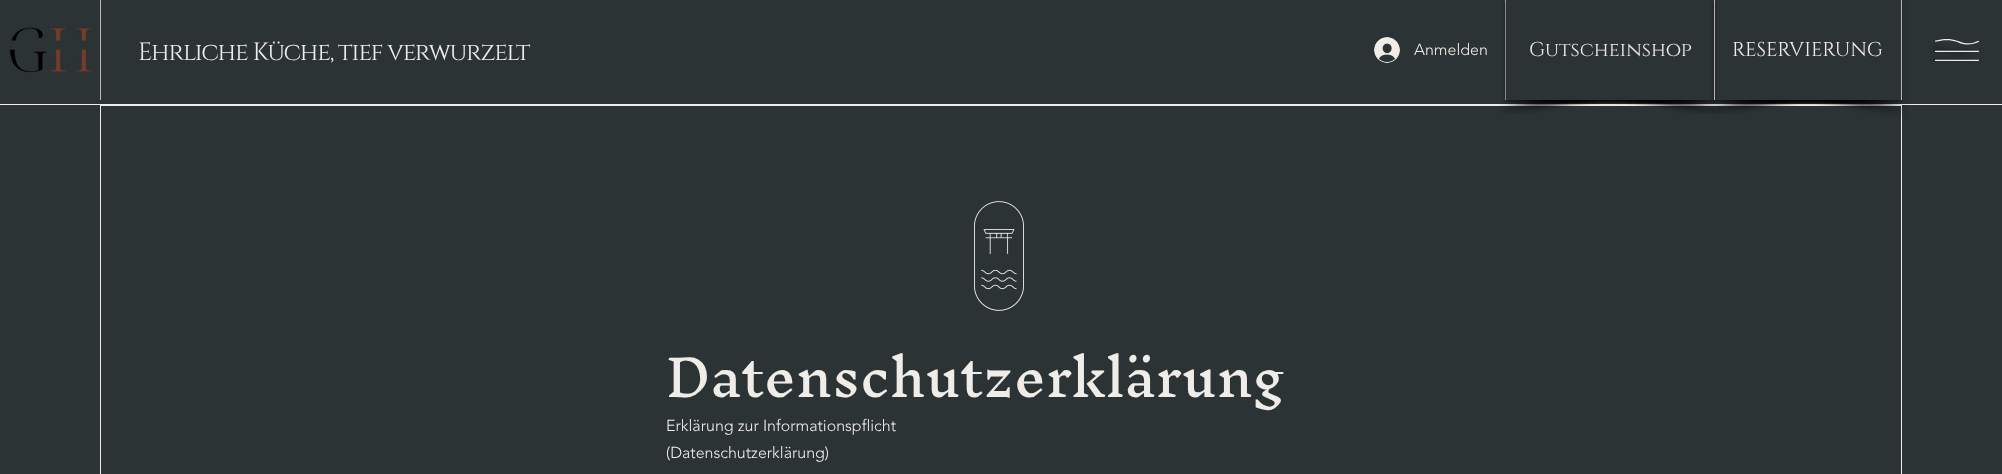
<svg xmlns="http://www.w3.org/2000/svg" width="2002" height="474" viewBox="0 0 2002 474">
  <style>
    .t1 { font: 25px Cinzel; letter-spacing: -1.25px; fill: #f0ece8; }
    .t2 { font: 300 16px 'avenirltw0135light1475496'; fill: #f0ece8; }
    .t3 { font: 20px Cinzel; fill: #f0ece8; }
    .t4 { font: 50px Inknut Antiqua; fill: #f0ece8; }
  </style>
  <defs>
    <clipPath id="clip1"><path d="M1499 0H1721V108H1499ZM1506 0H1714V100H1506Z" clip-rule="evenodd"/></clipPath>
    <clipPath id="clip2"><path d="M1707 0H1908V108H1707ZM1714 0H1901V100H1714Z" clip-rule="evenodd"/></clipPath>
  </defs>
  <rect width="100%" height="100%" fill="#2c3334"/>
  <image x="10" y="27" width="82" height="46" href="images/1.png"/>
  <rect x="100" y="0" width="1" height="100" fill="#bbb5b3"/>
  <text x="138" y="60" class="t1">Ehrliche Küche, tief verwurzelt</text>
  <image x="1374" y="37" width="26" height="26" href="images/2.png"/>
  <text x="1414" y="55" class="t2">Anmelden</text>
  <rect x="1505" y="0" width="1" height="100" fill="#bbb5b3"/>
  <rect x="0" y="104" width="2002" height="1" fill="#f0ece8"/>
  <rect x="100" y="105" width="1802" height="369" fill="#f0ece8"/>
  <rect x="101" y="106" width="1800" height="368" fill="#2c3334"/>
  <image x="1499" y="100" width="134" height="14" href="images/3.png"/>
  <image x="1599" y="100" width="122" height="14" href="images/4.png"/>
  <g clip-path="url(#clip1)">
    <rect x="1506" y="1" width="208" height="100" fill="#00000099" filter="blur(2px)"/>
  </g>
  <text x="1529" y="56" class="t3">Gutscheinshop</text>
  <rect x="1714" y="0" width="1" height="100" fill="#bbb5b3"/>
  <image x="1708" y="100" width="133" height="14" href="images/5.png"/>
  <image x="1796" y="100" width="112" height="17" href="images/6.png"/>
  <g clip-path="url(#clip2)">
    <rect x="1714" y="1" width="187" height="100" fill="#00000099" filter="blur(2px)"/>
  </g>
  <text x="1732" y="56" class="t3">RESERVIERUNG</text>
  <rect x="1901" y="0" width="1" height="100" fill="#bbb5b3"/>
  <image x="1933" y="39" width="46" height="23" href="images/7.png"/>
  <image x="974" y="201" width="50" height="110" href="images/8.png"/>
  <text x="666" y="397" class="t4">Datenschutzerklärung</text>
  <text x="666" y="431" class="t2">Erklärung zur Informationspflicht</text>
  <text x="666" y="458" class="t2">(Datenschutzerklärung)</text>
</svg>
